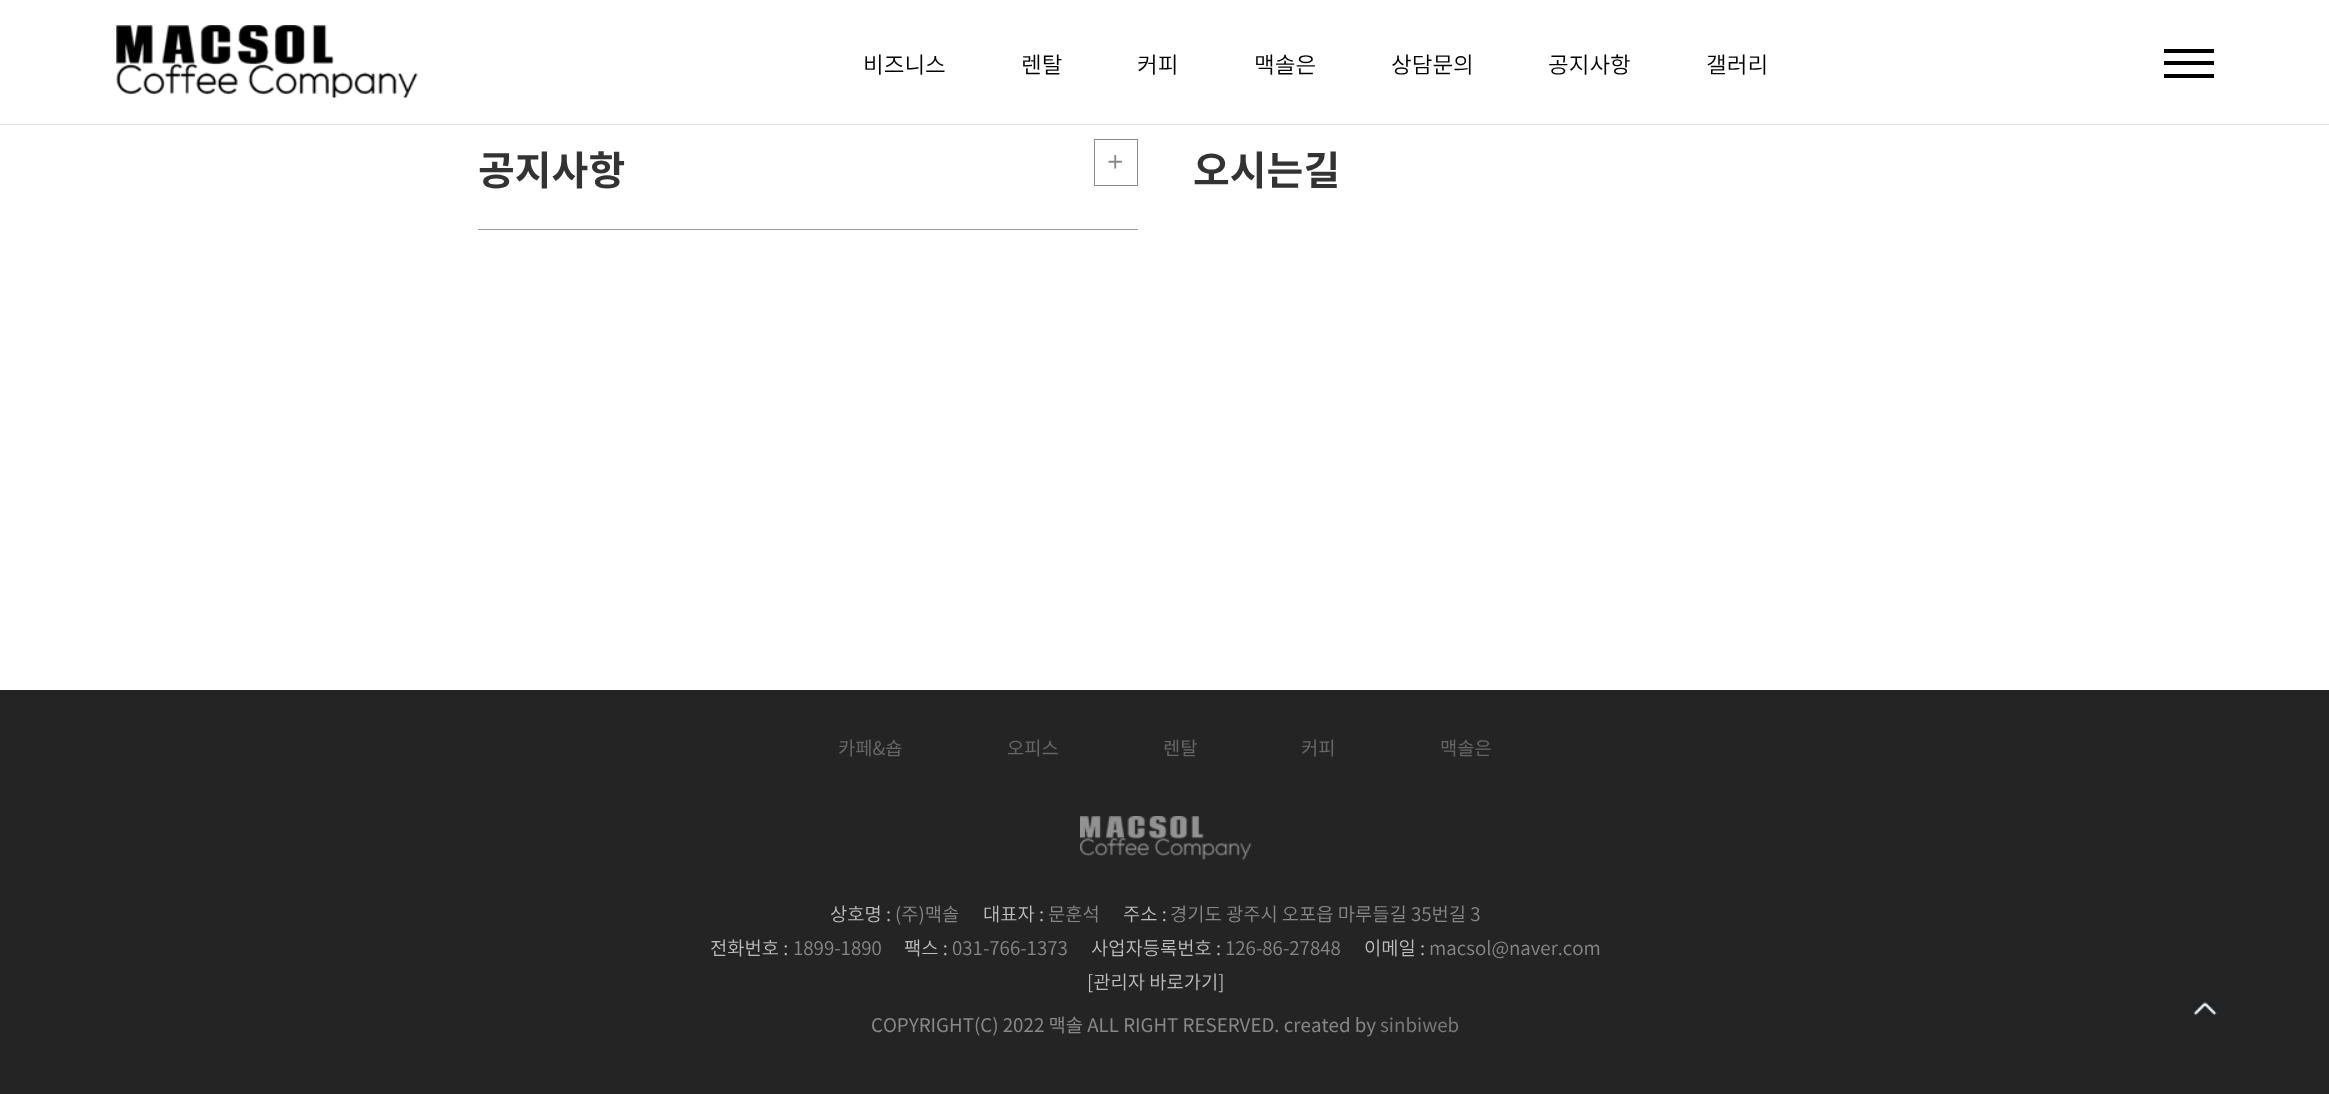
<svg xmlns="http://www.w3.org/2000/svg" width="2329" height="1094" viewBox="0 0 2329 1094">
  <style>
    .t1 { font: 300 22.5px Noto Sans KR; fill: #000; }
    .t2 { font: bold 40px Noto Sans KR; fill: #333; }
    .t3 { font: 25px NanumGothic; fill: #888; }
    .t4 { font: 18.75px Noto Sans KR; fill: #666; }
    .t5 { font: 300 18.75px Noto Sans KR; fill: #bebebe; }
    .t6 { font: 300 18.75px Noto Sans KR; fill: #888; }
    .t7 { font: 18.75px Noto Sans KR; fill: #888; }
    .t8 { font: 18.75px Noto Sans KR; fill: #797979; }
  </style>
  <rect width="100%" height="100%" fill="#fff"/>
  <rect x="0" y="124" width="2329" height="1" fill="#ddd"/>
  <image x="116" y="25" width="302" height="73" href="images/1.png"/>
  <text x="863" y="73" class="t1">비즈니스</text>
  <text x="1021" y="73" class="t1">렌탈</text>
  <text x="1137" y="73" class="t1">커피</text>
  <text x="1254" y="73" class="t1">맥솔은</text>
  <text x="1391" y="73" class="t1">상담문의</text>
  <text x="1548" y="73" class="t1">공지사항</text>
  <text x="1706" y="73" class="t1">갤러리</text>
  <rect x="2164" y="61" width="50" height="4" fill="#000"/>
  <rect x="2164" y="49" width="50" height="4" fill="#000"/>
  <rect x="2164" y="74" width="50" height="4" fill="#000"/>
  <rect x="478" y="229" width="660" height="1" fill="#999"/>
  <text x="478" y="185" class="t2">공지사항</text>
  <rect x="1094.5" y="139.5" width="43" height="46" fill="none" stroke="#888"/>
  <text x="1107" y="171" class="t3">+</text>
  <text x="1193" y="185" class="t2">오시는길</text>
  <rect x="0" y="690" width="2329" height="404" fill="#242424"/>
  <text x="838" y="755" class="t4">카페&amp;숍</text>
  <text x="1007" y="755" class="t4">오피스</text>
  <text x="1163" y="755" class="t4">렌탈</text>
  <text x="1301" y="755" class="t4">커피</text>
  <text x="1440" y="755" class="t4">맥솔은</text>
  <image x="1080" y="816" width="172" height="44" href="images/2.png"/>
  <text x="830" y="921" class="t5">상호명 :</text>
  <text x="895" y="921" class="t6">(주)맥솔</text>
  <text x="983" y="921" class="t5">대표자 :</text>
  <text x="1048" y="921" class="t6">문훈석</text>
  <text x="1123" y="921" class="t5">주소 :</text>
  <text x="1170" y="921" class="t6">경기도 광주시 오포읍 마루들길 35번길 3</text>
  <text x="710" y="955" class="t5">전화번호 :</text>
  <text x="793" y="955" class="t6">1899-1890</text>
  <text x="904" y="955" class="t5">팩스 :</text>
  <text x="952" y="955" class="t6">031-766-1373</text>
  <text x="1091" y="955" class="t5">사업자등록번호 :</text>
  <text x="1225" y="955" class="t6">126-86-27848</text>
  <text x="1364" y="955" class="t5">이메일 :</text>
  <text x="1429" y="955" class="t6">macsol@naver.com</text>
  <text x="1087" y="989" class="t5">[관리자 바로가기]</text>
  <text x="871" y="1032" class="t7">COPYRIGHT(C) 2022 맥솔 ALL RIGHT RESERVED. created by</text>
  <text x="1380" y="1032" class="t8">sinbiweb</text>
  <image x="2193" y="1002" width="24" height="14" href="images/3.png"/>
</svg>
